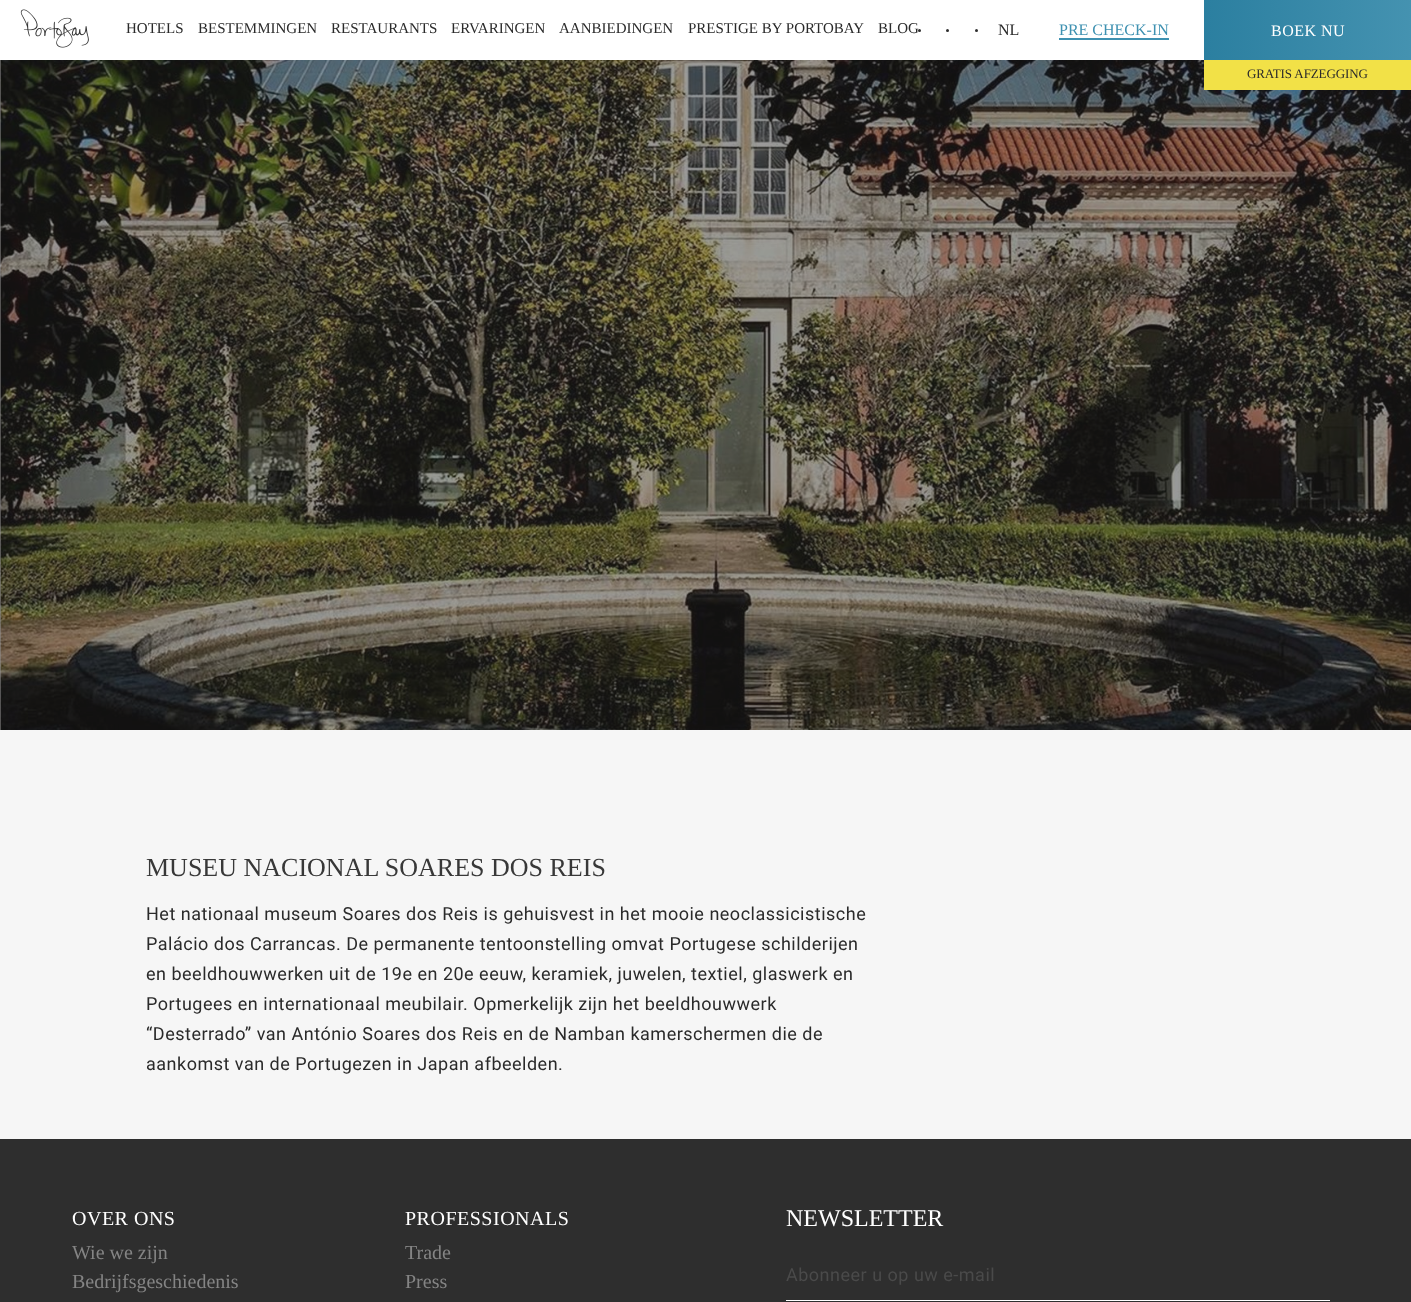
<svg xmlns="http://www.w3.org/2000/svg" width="1411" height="1302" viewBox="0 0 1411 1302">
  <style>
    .t1 { font: 15px Liberation Serif; fill: #2a2a2a; }
    .t2 { font: 16px Liberation Serif; fill: #2a2a2a; }
    .t3 { font: 16px Liberation Serif; fill: #3e91b1; }
    .t4 { font: 16px Liberation Serif; letter-spacing: 0.5px; fill: #fff; }
    .t5 { font: 13px Liberation Serif; letter-spacing: -0.1px; fill: #2a2a2a; }
    .t6 { font: 26px Liberation Serif; fill: #383838; }
    .t7 { font: 18px Roboto; letter-spacing: 0.5px; fill: #2a2a2a; }
    .t8 { font: 20px Liberation Serif; letter-spacing: 0.5px; fill: #fff; }
    .t9 { font: 20px Liberation Serif; fill: #848484; }
    .t10 { font: 24px Liberation Serif; fill: #fff; }
    .t11 { font: 18px Roboto; letter-spacing: 0.5px; fill: #4a4a4a; }
  </style>
  <defs>
    <linearGradient id="g1" gradientUnits="userSpaceOnUse" x1="1204" y1="185" x2="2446" y2="185"><stop offset="0" stop-color="#2b7fa0"/><stop offset="0.5" stop-color="#77b9d1"/><stop offset="1" stop-color="#2b7fa0"/></linearGradient>
  </defs>
  <rect width="100%" height="100%" fill="#fff"/>
  <image x="20" y="9" width="69" height="39" href="images/1.png"/>
  <text x="126" y="33" class="t1">HOTELS</text>
  <text x="198" y="33" class="t1">BESTEMMINGEN</text>
  <text x="331" y="33" class="t1">RESTAURANTS</text>
  <text x="451" y="33" class="t1">ERVARINGEN</text>
  <text x="559" y="33" class="t1">AANBIEDINGEN</text>
  <text x="688" y="33" class="t1">PRESTIGE BY PORTOBAY</text>
  <text x="878" y="33" class="t1">BLOG</text>
  <circle cx="947.5" cy="30.5" r="1.5" fill="#2e2e2e"/>
  <circle cx="919.5" cy="30.5" r="1.5" fill="#2e2e2e"/>
  <circle cx="976.5" cy="30.5" r="1.5" fill="#2e2e2e"/>
  <text x="998" y="35" class="t2">NL</text>
  <text x="1059" y="35" class="t3">PRE CHECK-IN</text>
  <rect x="1059" y="38" width="110" height="2" fill="#3e91b1"/>
  <rect x="1204" y="0" width="207" height="60" fill="url(#g1)"/>
  <text x="1271" y="36" class="t4">BOEK NU</text>
  <rect x="0" y="60" width="1" height="670" fill="#969594"/>
  <image x="0" y="60" width="1411" height="670" href="images/2.png"/>
  <rect x="1204" y="60" width="207" height="30" fill="#f2e147"/>
  <text x="1247" y="78" class="t5">GRATIS AFZEGGING</text>
  <rect x="0" y="730" width="1411" height="409" fill="#f6f6f6"/>
  <text x="146" y="876" class="t6">MUSEU NACIONAL SOARES DOS REIS</text>
  <text x="146" y="920" class="t7">Het nationaal museum Soares dos Reis is gehuisvest in het mooie neoclassicistische</text>
  <text x="146" y="950" class="t7">Palácio dos Carrancas. De permanente tentoonstelling omvat Portugese schilderijen</text>
  <text x="146" y="980" class="t7">en beeldhouwwerken uit de 19e en 20e eeuw, keramiek, juwelen, textiel, glaswerk en</text>
  <text x="146" y="1010" class="t7">Portugees en internationaal meubilair. Opmerkelijk zijn het beeldhouwwerk</text>
  <text x="146" y="1040" class="t7">“Desterrado” van António Soares dos Reis en de Namban kamerschermen die de</text>
  <text x="146" y="1070" class="t7">aankomst van de Portugezen in Japan afbeelden.</text>
  <rect x="0" y="1139" width="1411" height="163" fill="#2e2e2e"/>
  <text x="72" y="1225" class="t8">OVER ONS</text>
  <text x="72" y="1259" class="t9">Wie we zijn</text>
  <text x="72" y="1288" class="t9">Bedrijfsgeschiedenis</text>
  <text x="405" y="1225" class="t8">PROFESSIONALS</text>
  <text x="405" y="1259" class="t9">Trade</text>
  <text x="405" y="1288" class="t9">Press</text>
  <text x="786" y="1226" class="t10">NEWSLETTER</text>
  <rect x="786" y="1300" width="544" height="1" fill="#fff"/>
  <text x="786" y="1281" class="t11">Abonneer u op uw e-mail</text>
</svg>
